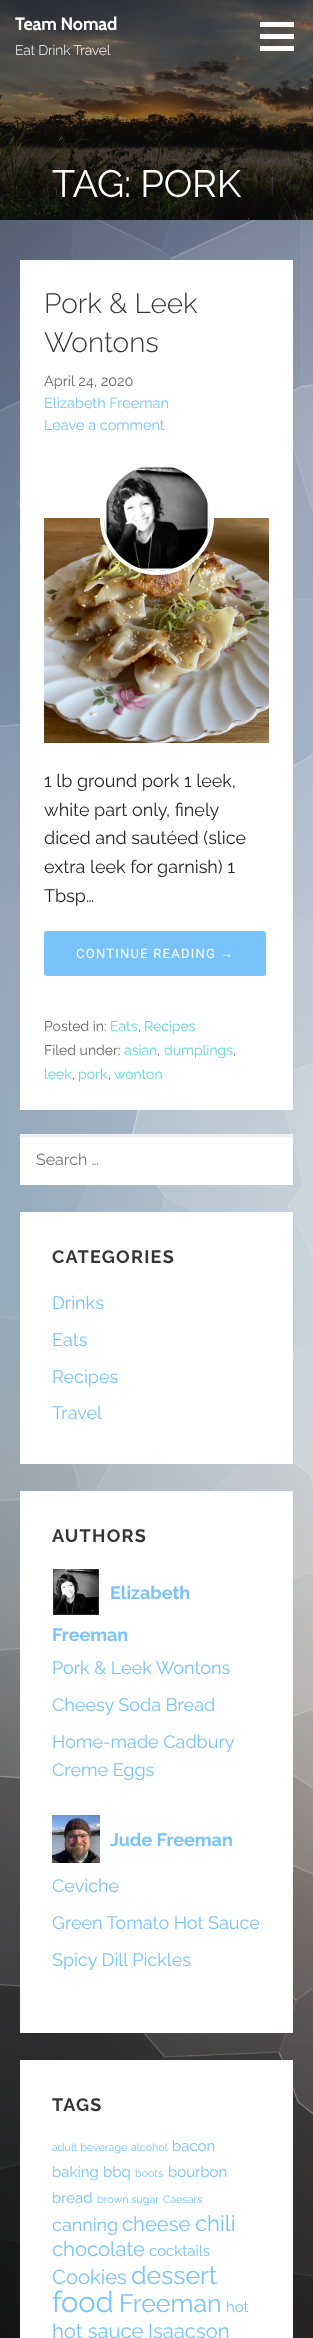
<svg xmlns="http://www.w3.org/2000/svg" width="313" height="2338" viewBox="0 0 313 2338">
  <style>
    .t1 { font: bold 18px Cabin; letter-spacing: -0.2px; fill: #fff; }
    .t2 { font: 300 14px Raleway; letter-spacing: -0.2px; fill: #fff; }
    .t3 { font: 38px Raleway; letter-spacing: -0.2px; fill: #fff; }
    .t4 { font: 300 28px Raleway; fill: #353535; }
    .t5 { font: 14.5px Raleway; fill: #686868; }
    .t6 { font: 14.5px Raleway; fill: #78c3fb; }
    .t7 { font: 18px Raleway; fill: #252525; }
    .t8 { font: 13px Roboto; letter-spacing: 1.25px; fill: #fff; }
    .t9 { font: 13px Liberation Sans; letter-spacing: 1.25px; fill: #fff; }
    .t10 { font: 14px Raleway; fill: #686868; }
    .t11 { font: 14px Raleway; fill: #62d7db; }
    .t12 { font: 16px Raleway; fill: #757575; }
    .t13 { font: bold 18px Raleway; letter-spacing: 1.25px; fill: #353535; }
    .t14 { font: 18px Raleway; fill: #78c3fb; }
    .t15 { font: bold 18px Raleway; fill: #78c3fb; }
    .t16 { font: 10.75px Raleway; fill: #78c3fb; }
    .t17 { font: 15px Raleway; fill: #78c3fb; }
    .t18 { font: 20.25px Raleway; fill: #78c3fb; }
    .t19 { font: 22px Raleway; fill: #78c3fb; }
    .t20 { font: 25px Raleway; fill: #78c3fb; }
    .t21 { font: 29px Raleway; fill: #78c3fb; }
  </style>
  <rect width="100%" height="100%" fill="#fff"/>
  <image x="0" y="220" width="313" height="2118" href="images/1.png"/>
  <image x="0" y="0" width="313" height="220" href="images/2.png"/>
  <text x="15" y="30" class="t1">Team Nomad</text>
  <text x="15" y="55" class="t2">Eat Drink Travel</text>
  <rect x="260" y="22" width="34" height="5" fill="#fff"/>
  <rect x="260" y="34" width="34" height="5" fill="#fff"/>
  <rect x="260" y="46" width="34" height="5" fill="#fff"/>
  <text x="52" y="197" class="t3">TAG: PORK</text>
  <rect x="20" y="260" width="273" height="850" fill="#fff"/>
  <text x="44" y="313" class="t4">Pork &amp; Leek</text>
  <text x="44" y="352" class="t4">Wontons</text>
  <text x="44" y="386" class="t5">April 24, 2020</text>
  <text x="44" y="408" class="t6">Elizabeth Freeman</text>
  <text x="44" y="430" class="t6">Leave a comment</text>
  <image x="44" y="518" width="225" height="225" href="images/4.png"/>
  <circle cx="157" cy="518" r="55" fill="none" stroke="#fff" stroke-width="4"/>
  <image x="104" y="466" width="106" height="105" href="images/3.png"/>
  <text x="44" y="787" class="t7">1 lb ground pork 1 leek,</text>
  <text x="44" y="816" class="t7">white part only, finely</text>
  <text x="44" y="844" class="t7">diced and sautéed (slice</text>
  <text x="44" y="873" class="t7">extra leek for garnish) 1</text>
  <text x="44" y="902" class="t7">Tbsp…</text>
  <rect x="44" y="931" width="222" height="45" rx="3" fill="#78c3fb"/>
  <text x="76" y="958" class="t8">CONTINUE READING</text>
  <text x="220" y="958" class="t9">→</text>
  <text x="44" y="1031" class="t10">Posted in:</text>
  <text x="110" y="1031" class="t11">Eats</text>
  <text x="138" y="1031" class="t10">,</text>
  <text x="144" y="1031" class="t11">Recipes</text>
  <text x="44" y="1055" class="t10">Filed under:</text>
  <text x="124" y="1055" class="t11">asian</text>
  <text x="157" y="1055" class="t10">,</text>
  <text x="164" y="1055" class="t11">dumplings</text>
  <text x="233" y="1055" class="t10">,</text>
  <text x="44" y="1079" class="t11">leek</text>
  <text x="72" y="1079" class="t10">,</text>
  <text x="78" y="1079" class="t11">pork</text>
  <text x="108" y="1079" class="t10">,</text>
  <text x="114" y="1079" class="t11">wonton</text>
  <rect x="20" y="1134" width="273" height="51" fill="#fff"/>
  <path d="M22 1137H291C292 1137 293 1138 293 1139C293 1137 294 1134 291 1134H21C19 1135 20 1138 20 1139C20 1138 21 1137 22 1137Z" fill="#f0f0f0"/>
  <text x="36" y="1165" class="t12">Search …</text>
  <rect x="20" y="1212" width="273" height="252" fill="#fff"/>
  <text x="52" y="1263" class="t13">CATEGORIES</text>
  <text x="52" y="1309" class="t14">Drinks</text>
  <text x="52" y="1346" class="t14">Eats</text>
  <text x="52" y="1383" class="t14">Recipes</text>
  <text x="52" y="1419" class="t14">Travel</text>
  <rect x="20" y="1491" width="273" height="542" fill="#fff"/>
  <text x="52" y="1542" class="t13">AUTHORS</text>
  <image x="52" y="1568" width="48" height="48" href="images/5.png"/>
  <text x="110" y="1599" class="t15">Elizabeth</text>
  <text x="52" y="1641" class="t15">Freeman</text>
  <text x="52" y="1674" class="t14">Pork &amp; Leek Wontons</text>
  <text x="52" y="1711" class="t14">Cheesy Soda Bread</text>
  <text x="52" y="1748" class="t14">Home-made Cadbury</text>
  <text x="52" y="1776" class="t14">Creme Eggs</text>
  <image x="52" y="1815" width="48" height="48" href="images/6.png"/>
  <text x="110" y="1846" class="t15">Jude Freeman</text>
  <text x="52" y="1892" class="t14">Ceviche</text>
  <text x="52" y="1929" class="t14">Green Tomato Hot Sauce</text>
  <text x="52" y="1966" class="t14">Spicy Dill Pickles</text>
  <rect x="20" y="2060" width="273" height="278" fill="#fff"/>
  <text x="52" y="2111" class="t13">TAGS</text>
  <text x="52" y="2151" class="t16">adult beverage</text>
  <text x="131" y="2151" class="t16">alcohol</text>
  <text x="172" y="2151" class="t17">bacon</text>
  <text x="52" y="2177" class="t17">baking</text>
  <text x="103" y="2177" class="t17">bbq</text>
  <text x="135" y="2177" class="t16">boots</text>
  <text x="168" y="2177" class="t17">bourbon</text>
  <text x="52" y="2203" class="t17">bread</text>
  <text x="97" y="2203" class="t16">brown sugar</text>
  <text x="163" y="2203" class="t16">Caesars</text>
  <text x="52" y="2231" class="t14">canning</text>
  <text x="122" y="2231" class="t18">cheese</text>
  <text x="195" y="2231" class="t19">chili</text>
  <text x="52" y="2256" class="t18">chocolate</text>
  <text x="149" y="2256" class="t17">cocktails</text>
  <text x="52" y="2284" class="t18">Cookies</text>
  <text x="131" y="2284" class="t20">dessert</text>
  <text x="52" y="2312" class="t21">food</text>
  <text x="119" y="2312" class="t20">Freeman</text>
  <text x="226" y="2312" class="t17">hot</text>
  <text x="52" y="2338" class="t18">hot sauce</text>
  <text x="148" y="2338" class="t18">Isaacson</text>
</svg>
